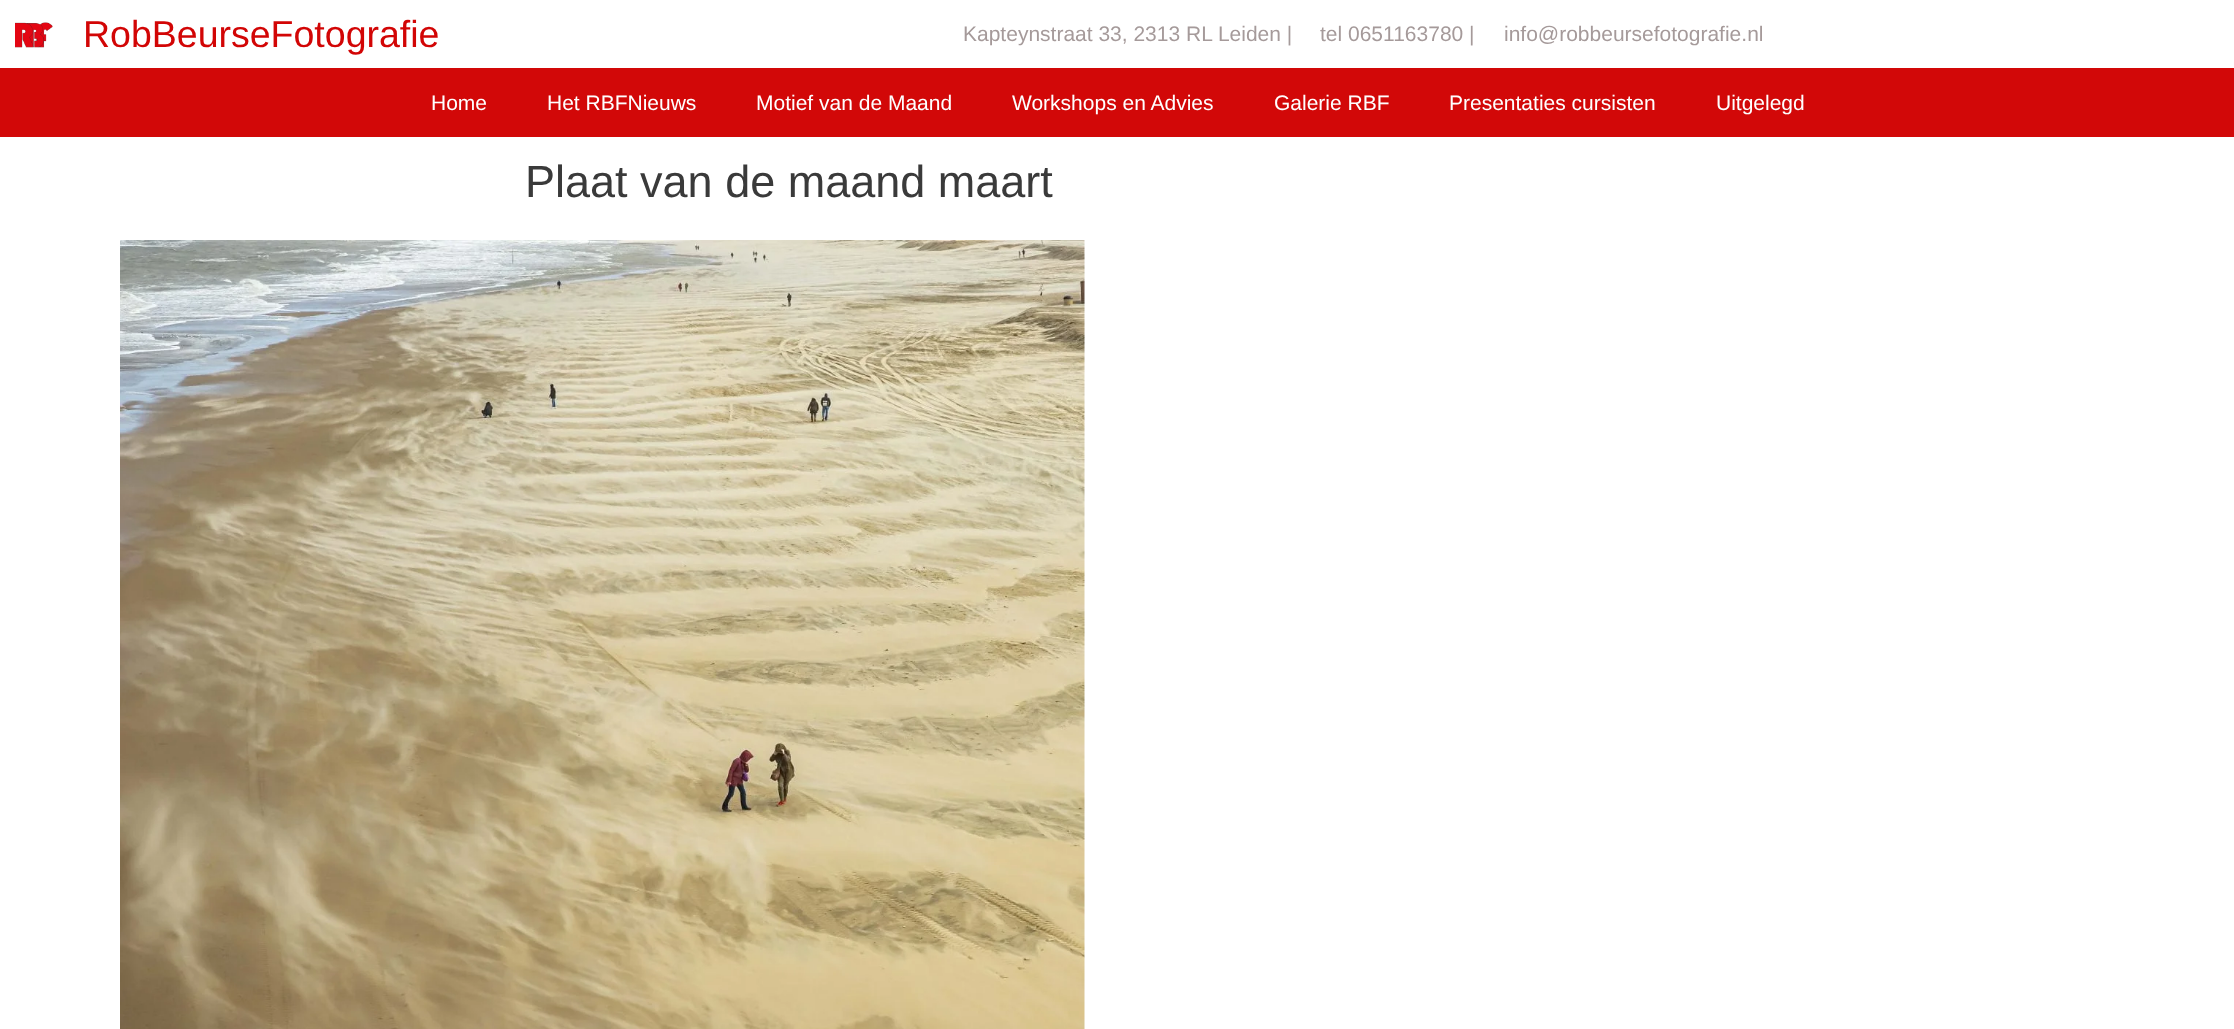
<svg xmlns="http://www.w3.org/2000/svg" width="2234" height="1029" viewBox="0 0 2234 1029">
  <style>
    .t1 { font: 37.5px Liberation Sans; fill: #d20505; }
    .t2 { font: 21px Liberation Sans; fill: #a59a9a; }
    .t3 { font: 21px Liberation Sans; fill: #fff; }
    .t4 { font: 45px Liberation Sans; fill: #3a3a3a; }
  </style>
  <rect width="100%" height="100%" fill="#fff"/>
  <image x="15" y="22" width="38" height="26" href="images/1.png"/>
  <text x="83" y="47" class="t1">RobBeurseFotografie</text>
  <text x="963" y="41" class="t2">Kapteynstraat 33, 2313 RL Leiden |</text>
  <text x="1320" y="41" class="t2">tel 0651163780 |</text>
  <text x="1504" y="41" class="t2">info@robbeursefotografie.nl</text>
  <rect x="0" y="68" width="2234" height="69" fill="#d20808"/>
  <text x="431" y="110" class="t3">Home</text>
  <text x="547" y="110" class="t3">Het RBFNieuws</text>
  <text x="756" y="110" class="t3">Motief van de Maand</text>
  <text x="1012" y="110" class="t3">Workshops en Advies</text>
  <text x="1274" y="110" class="t3">Galerie RBF</text>
  <text x="1449" y="110" class="t3">Presentaties cursisten</text>
  <text x="1716" y="110" class="t3">Uitgelegd</text>
  <text x="525" y="197" class="t4">Plaat van de maand maart</text>
  <image x="120" y="240" width="965" height="789" href="images/2.png"/>
</svg>
